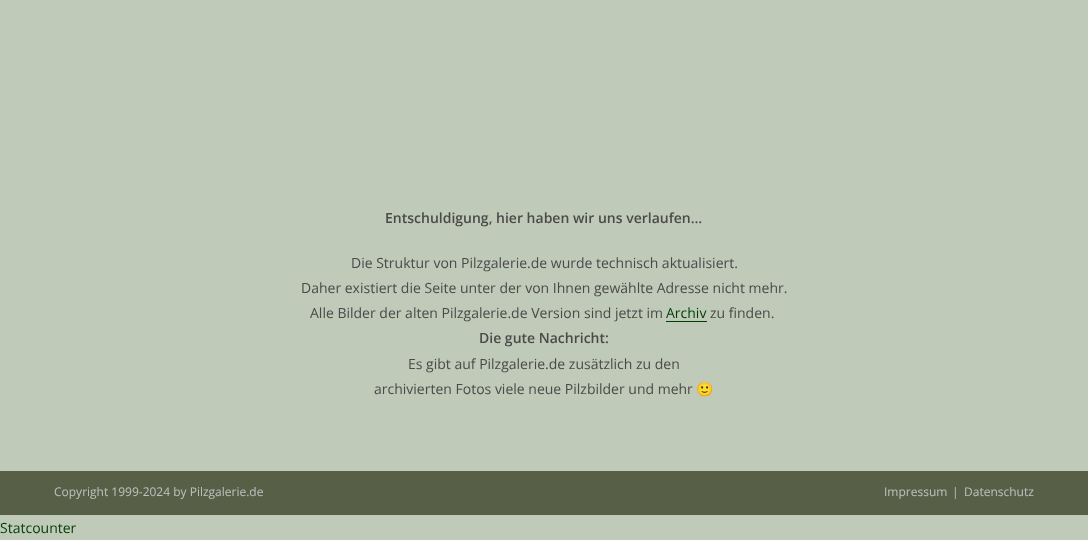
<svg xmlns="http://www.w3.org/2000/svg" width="1088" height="540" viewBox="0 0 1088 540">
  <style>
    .t1 { font: 600 14px Open Sans; fill: #4a4a4a; }
    .t2 { font: 14px Open Sans; fill: #4a4a4a; }
    .t3 { font: 14px Open Sans; fill: #013d05; }
    .t4 { font: 14px Noto Color Emoji; fill: #4a4a4a; }
    .t5 { font: 12px Open Sans; fill: #c0c0c0; }
  </style>
  <rect width="100%" height="100%" fill="#bfcab8"/>
  <text x="385" y="223" class="t1">Entschuldigung, hier haben wir uns verlaufen…</text>
  <text x="351" y="268" class="t2">Die Struktur von Pilzgalerie.de wurde technisch aktualisiert.</text>
  <text x="301" y="293" class="t2">Daher existiert die Seite unter der von Ihnen gewählte Adresse nicht mehr.</text>
  <text x="310" y="318" class="t2">Alle Bilder der alten Pilzgalerie.de Version sind jetzt im</text>
  <text x="666" y="318" class="t3">Archiv</text>
  <rect x="666" y="321" width="41" height="1" fill="#013d05"/>
  <text x="710" y="318" class="t2">zu finden.</text>
  <text x="479" y="343" class="t1">Die gute Nachricht:</text>
  <text x="408" y="369" class="t2">Es gibt auf Pilzgalerie.de zusätzlich zu den</text>
  <text x="374" y="394" class="t2">archivierten Fotos viele neue Pilzbilder und mehr</text>
  <text x="696" y="394" class="t4">🙂</text>
  <rect x="0" y="471" width="1088" height="44" fill="#576047"/>
  <text x="54" y="496" class="t5">Copyright 1999-2024 by Pilzgalerie.de</text>
  <text x="884" y="496" class="t5">Impressum</text>
  <text x="952" y="496" class="t5">|</text>
  <text x="964" y="496" class="t5">Datenschutz</text>
  <text x="0" y="533" class="t3">Statcounter</text>
</svg>
